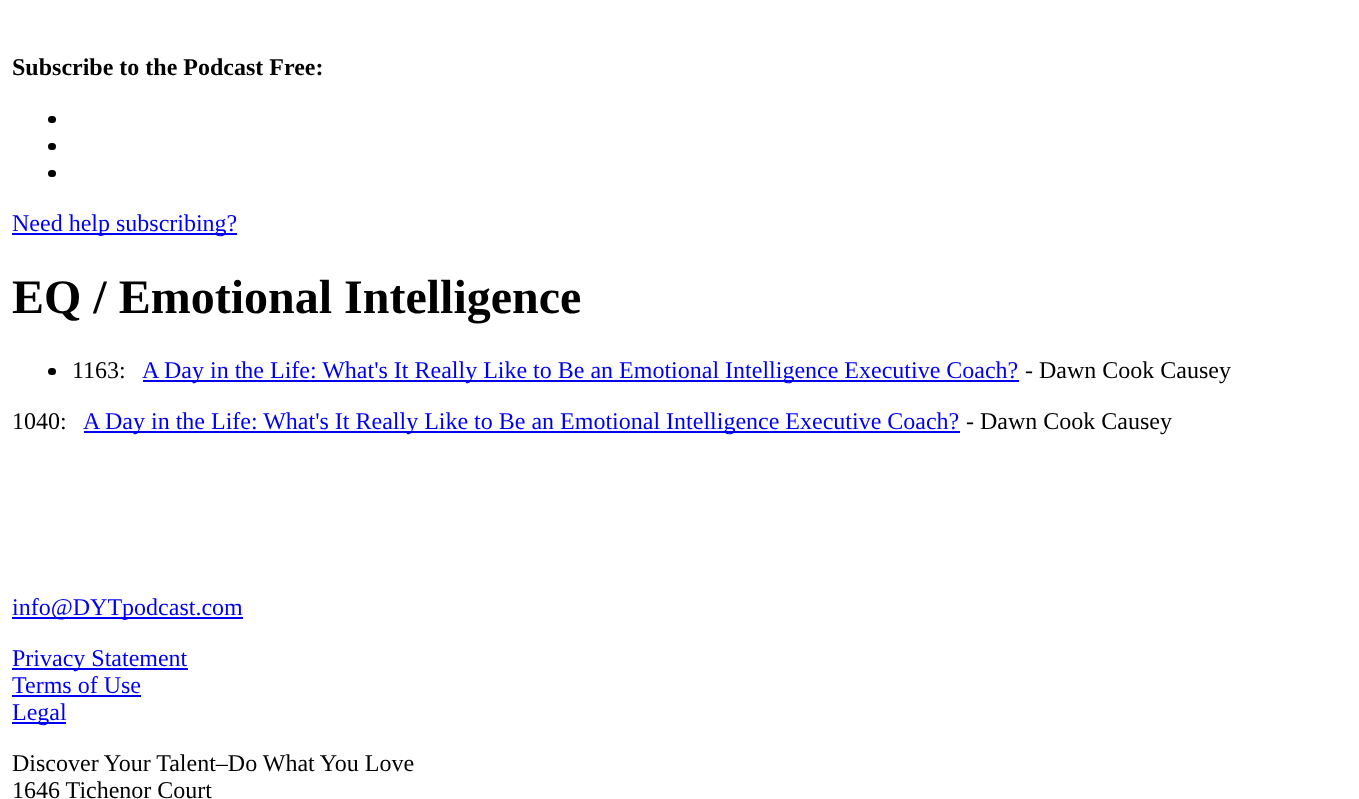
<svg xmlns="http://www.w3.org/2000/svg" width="1359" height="799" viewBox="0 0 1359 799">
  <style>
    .t1 { font: bold 24px Liberation Serif; fill: #000; }
    .t2 { font: 24px Liberation Serif; fill: #00e; }
    .t3 { font: bold 48px Liberation Serif; fill: #000; }
    .t4 { font: 24px Liberation Serif; fill: #000; }
  </style>
  <rect width="100%" height="100%" fill="#fff"/>
  <text x="12" y="75" class="t1">Subscribe to the Podcast Free:</text>
  <rect x="48" y="116" width="8" height="7" rx="3.5" fill="#000"/>
  <rect x="48" y="143" width="8" height="7" rx="3.5" fill="#000"/>
  <rect x="48" y="170" width="8" height="7" rx="3.5" fill="#000"/>
  <rect x="12" y="233" width="225" height="2" fill="#00e"/>
  <text x="12" y="231" class="t2">Need help subscribing?</text>
  <text x="12" y="313" class="t3">EQ / Emotional Intelligence</text>
  <rect x="48" y="368" width="8" height="7" rx="3.5" fill="#000"/>
  <text x="72" y="378" class="t4">1163:</text>
  <rect x="143" y="380" width="876" height="2" fill="#00e"/>
  <text x="142" y="378" class="t2">A Day in the Life: What's It Really Like to Be an Emotional Intelligence Executive Coach?</text>
  <text x="1025" y="378" class="t4">- Dawn Cook Causey</text>
  <text x="12" y="429" class="t4">1040:</text>
  <rect x="84" y="431" width="876" height="2" fill="#00e"/>
  <text x="83" y="429" class="t2">A Day in the Life: What's It Really Like to Be an Emotional Intelligence Executive Coach?</text>
  <text x="966" y="429" class="t4">- Dawn Cook Causey</text>
  <rect x="12" y="617" width="231" height="2" fill="#00e"/>
  <text x="12" y="615" class="t2">info@DYTpodcast.com</text>
  <rect x="12" y="668" width="176" height="2" fill="#00e"/>
  <text x="12" y="666" class="t2">Privacy Statement</text>
  <text x="12" y="693" class="t2">Terms of Use</text>
  <rect x="12" y="695" width="129" height="2" fill="#00e"/>
  <rect x="12" y="722" width="54" height="2" fill="#00e"/>
  <text x="12" y="720" class="t2">Legal</text>
  <text x="12" y="771" class="t4">Discover Your Talent–Do What You Love</text>
  <text x="12" y="798" class="t4">1646 Tichenor Court</text>
</svg>
